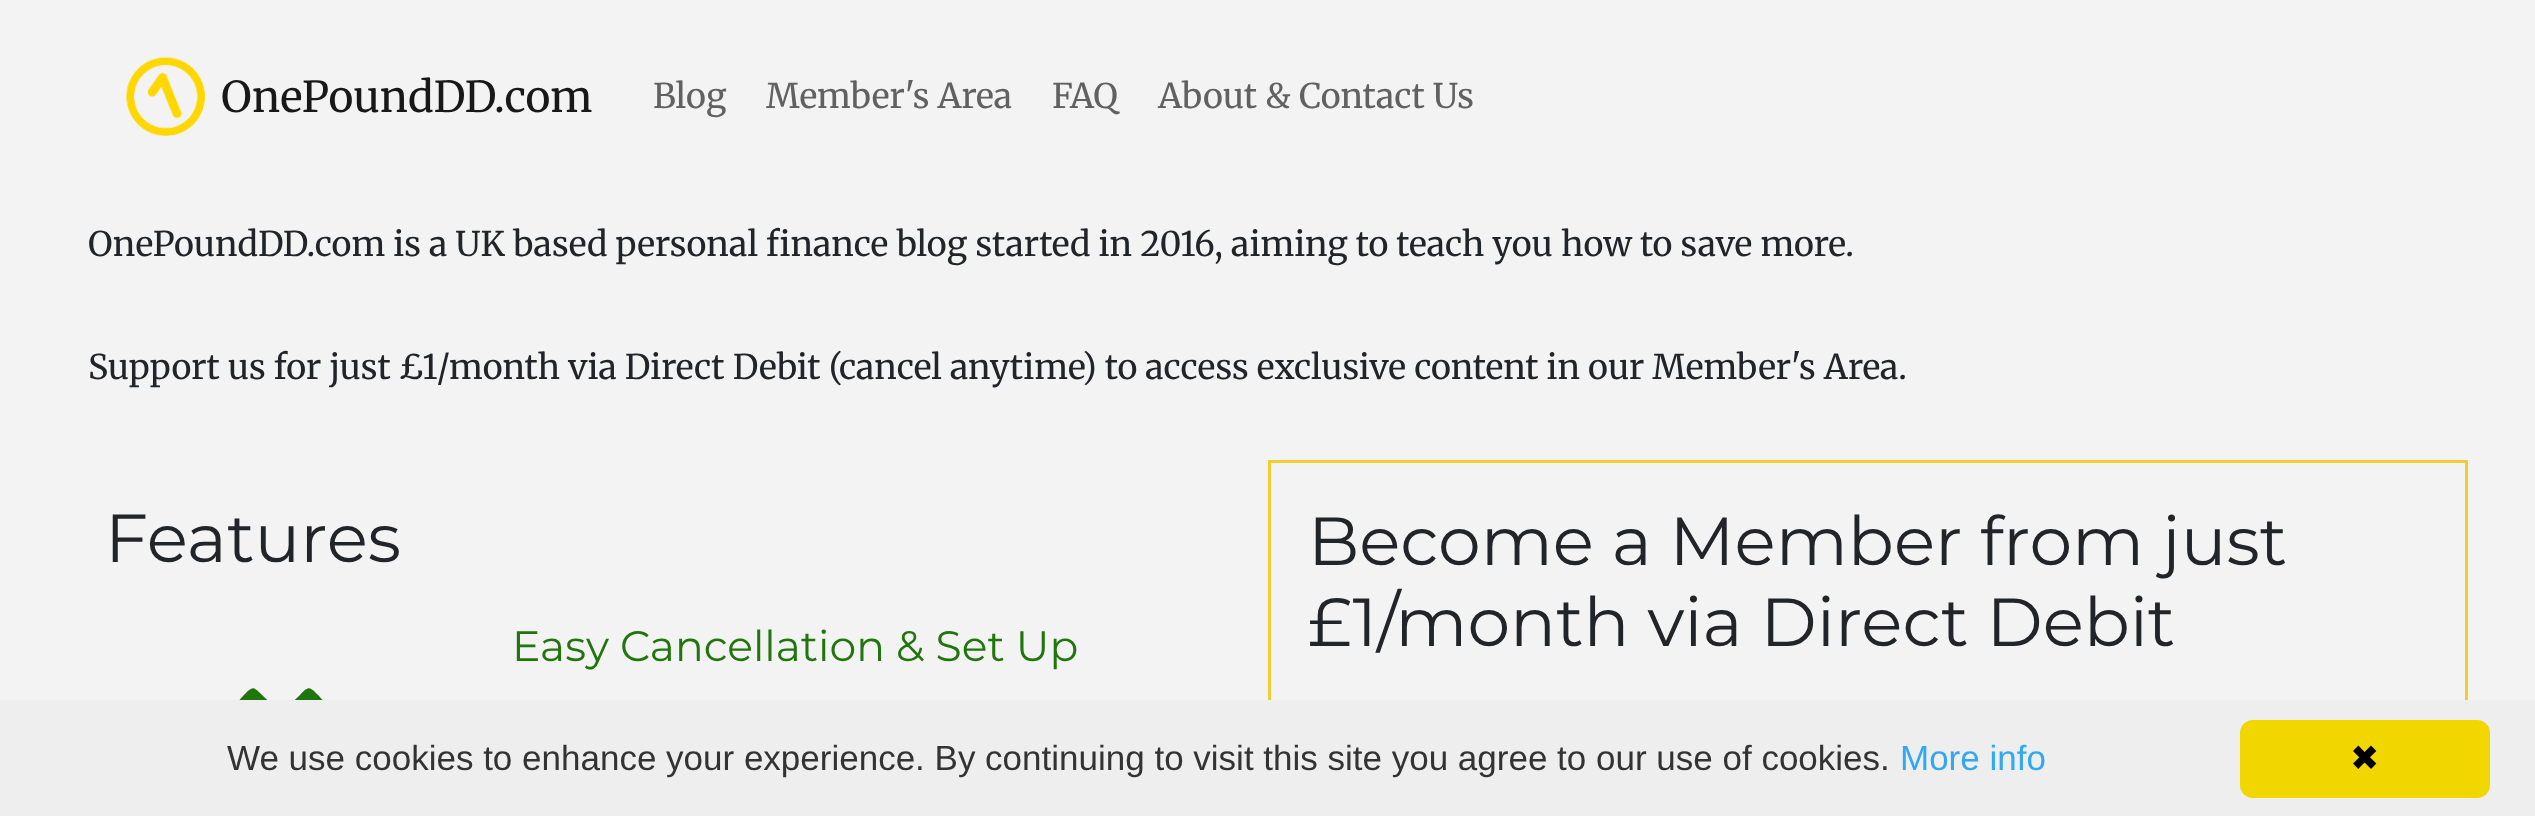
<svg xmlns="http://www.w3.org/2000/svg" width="2535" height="816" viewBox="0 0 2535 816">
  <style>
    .t1 { font: 300 42.5px Merriweather; fill: #181818; }
    .t2 { font: 300 34px Merriweather; fill: #616161; }
    .t3 { font: 300 34px Merriweather; fill: #212529; }
    .t4 { font: 100 68px Montserrat; fill: #212529; }
    .t5 { font: 100 42.5px Montserrat; fill: #20750d; }
    .t6 { font: 35px Liberation Sans; fill: #333; }
    .t7 { font: 35px Liberation Sans; fill: #31a8f0; }
    .t8 { font: 35px DejaVu Sans; fill: #000; }
  </style>
  <rect width="100%" height="100%" fill="#f3f3f3"/>
  <image x="126" y="56" width="80" height="81" href="images/1.png"/>
  <text x="221" y="112" class="t1">OnePoundDD.com</text>
  <text x="653" y="108" class="t2">Blog</text>
  <text x="766" y="108" class="t2">Member's Area</text>
  <text x="1052" y="108" class="t2">FAQ</text>
  <text x="1158" y="108" class="t2">About &amp; Contact Us</text>
  <text x="88" y="256" class="t3">OnePoundDD.com is a UK based personal finance blog started in 2016, aiming to teach you how to save more.</text>
  <text x="88" y="379" class="t3">Support us for just £1/month via Direct Debit (cancel anytime) to access exclusive content in our Member's Area.</text>
  <text x="105" y="562" class="t4">Features</text>
  <text x="512" y="661" class="t5">Easy Cancellation &amp; Set Up</text>
  <path d="M324 756C330 762 323 768 319 772C310 780 309 782 300 773L281 754L262 773C253 782 252 780 243 772C235 763 233 761 242 752L260 734L242 715C233 706 235 705 243 696C252 687 253 685 262 695L281 713L300 695C309 685 310 687 319 696C327 705 329 706 320 715L302 734Z" fill="#20750d"/>
  <rect x="1269.5" y="461.5" width="1197" height="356" fill="none" stroke="#f1cd31" stroke-width="3"/>
  <text x="1308" y="565" class="t4">Become a Member from just</text>
  <text x="1308" y="646" class="t4">£1/month via Direct Debit</text>
  <rect x="0" y="700" width="2535" height="116" fill="#eee"/>
  <text x="227" y="770" class="t6">We use cookies to enhance your experience. By continuing to visit this site you agree to our use of cookies.</text>
  <text x="1900" y="770" class="t7">More info</text>
  <rect x="2240" y="720" width="250" height="78" rx="13" fill="#f1d600"/>
  <text x="2350" y="770" class="t8">✖</text>
</svg>
